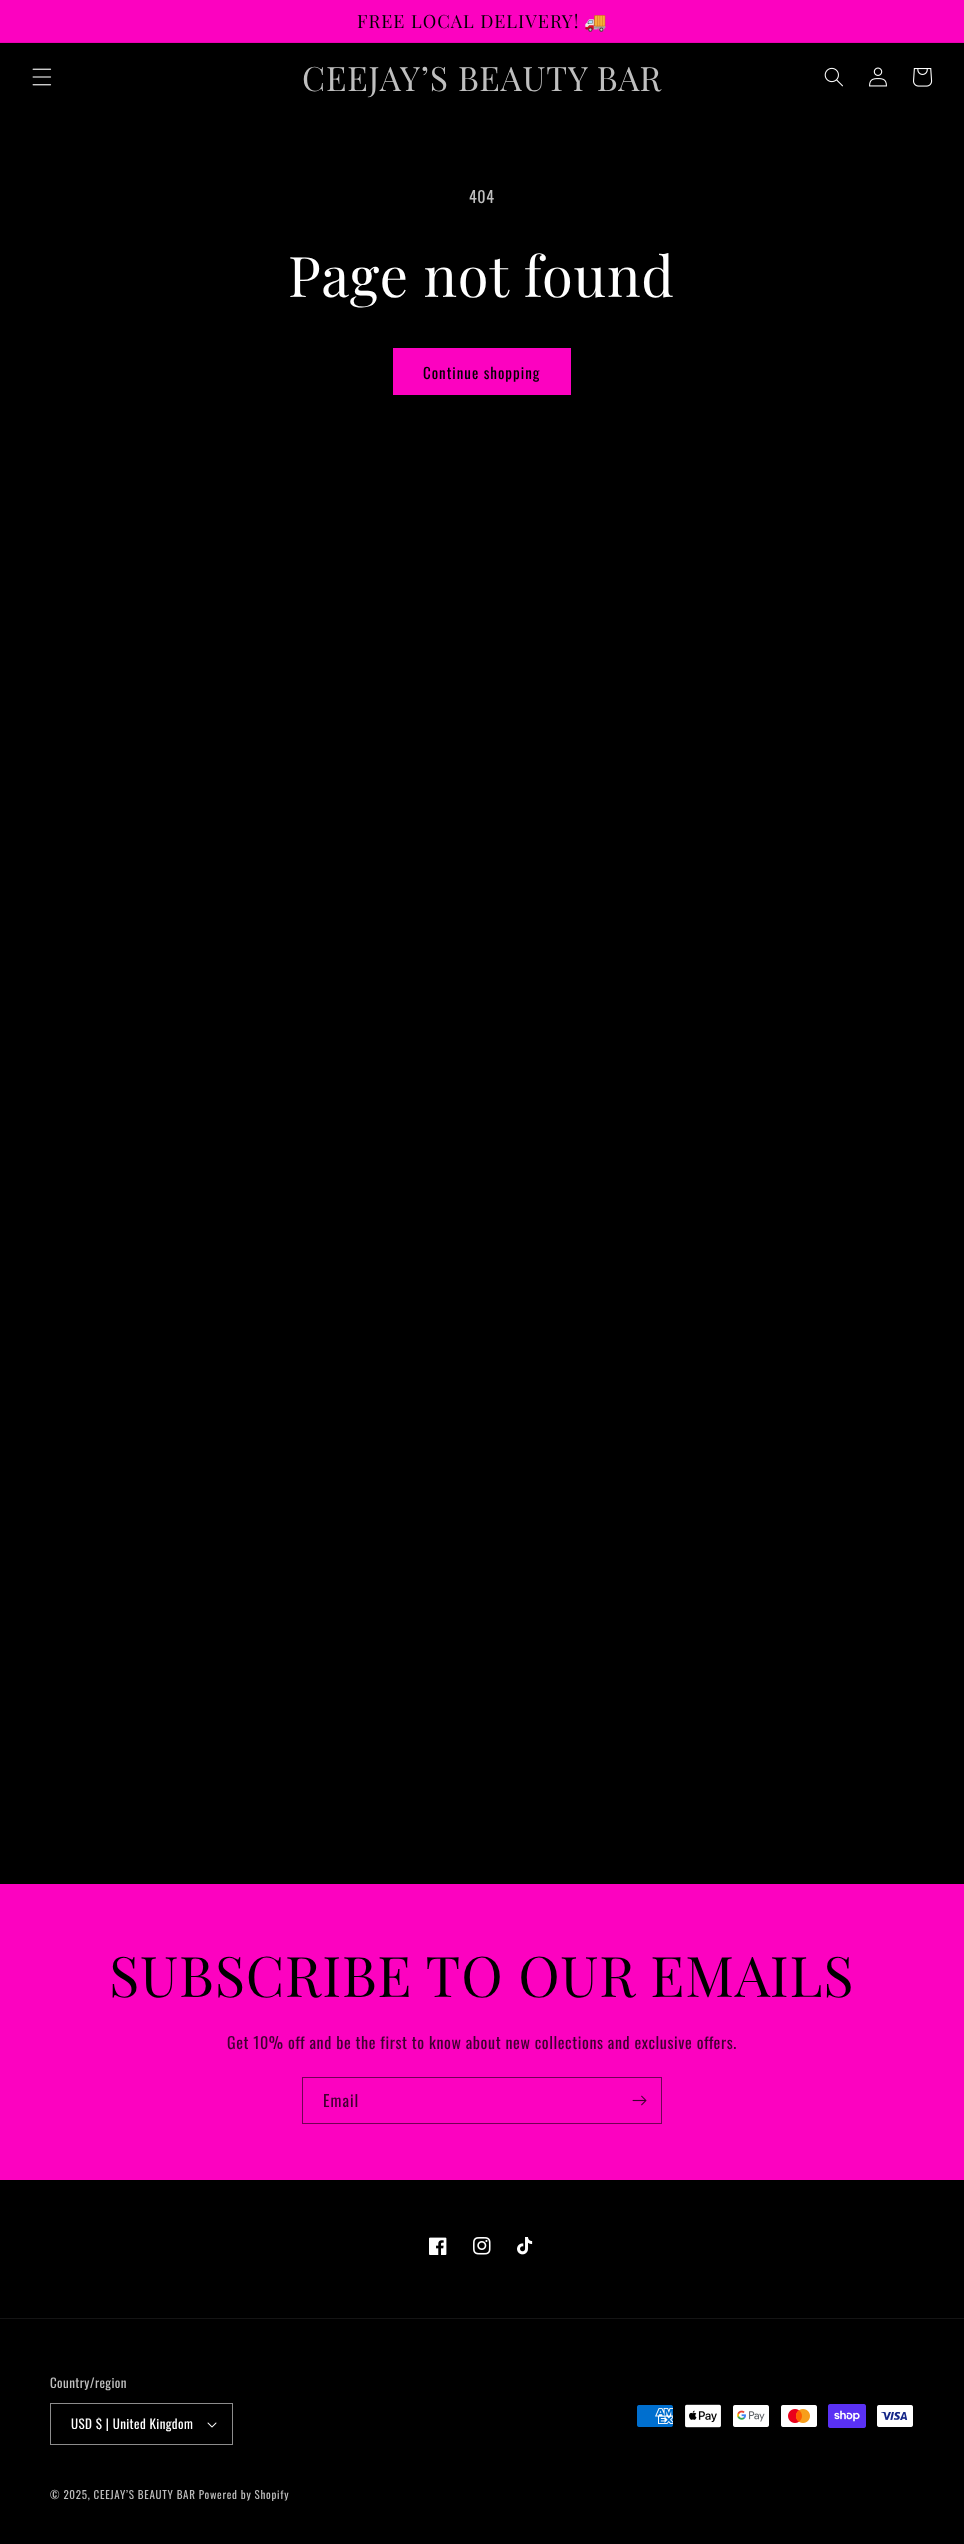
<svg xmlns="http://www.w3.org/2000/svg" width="964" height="2544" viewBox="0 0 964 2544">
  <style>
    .t1 { font: 18.25px Playfair Display; letter-spacing: 1px; fill: #000; }
    .t2 { font: 18.25px Noto Color Emoji; letter-spacing: 1px; fill: #000; }
    .t3 { font: 33.6px Playfair Display; letter-spacing: 0.8px; fill: #bfbfbf; }
    .t4 { font: 16px Oswald; letter-spacing: 0.6px; fill: #bfbfbf; }
    .t5 { font: 56px Playfair Display; letter-spacing: 0.8px; fill: #fff; }
    .t6 { font: 15px Oswald; letter-spacing: 1px; fill: #000; }
    .t7 { font: 56px Playfair Display; letter-spacing: 0.8px; fill: #000; }
    .t8 { font: 16px Oswald; letter-spacing: 0.6px; fill: #3f0130; }
    .t9 { font: 16px Oswald; letter-spacing: 1px; fill: #3f0130; }
    .t10 { font: 13px Oswald; letter-spacing: 0.4px; fill: #bfbfbf; }
    .t11 { font: 13px Oswald; letter-spacing: 0.4px; fill: #fff; }
    .t12 { font: 11px Oswald; letter-spacing: 0.7px; fill: #bfbfbf; }
  </style>
  <rect width="100%" height="100%" fill="#000"/>
  <rect x="0" y="0" width="964" height="42" fill="#fc02c0"/>
  <rect x="0" y="42" width="964" height="1" fill="#e802b1"/>
  <text x="357" y="28" class="t1">FREE LOCAL DELIVERY!</text>
  <text x="584" y="28" class="t2">🚚</text>
  <image x="32" y="68" width="20" height="18" href="images/1.png"/>
  <text x="302" y="91" class="t3">CEEJAY’S BEAUTY BAR</text>
  <image x="824" y="67" width="19" height="20" href="images/2.png"/>
  <image x="869" y="67" width="18" height="20" href="images/3.png"/>
  <image x="913" y="68" width="20" height="19" href="images/4.png"/>
  <text x="469" y="203" class="t4">404</text>
  <text x="288" y="297" class="t5">Page not found</text>
  <rect x="393" y="348" width="178" height="47" fill="#fc02c0"/>
  <text x="423" y="379" class="t6">Continue shopping</text>
  <rect x="0" y="1884" width="964" height="296" fill="#fc02c0"/>
  <text x="109" y="1997" class="t7">SUBSCRIBE TO OUR EMAILS</text>
  <text x="227" y="2049" class="t8">Get 10% off and be the first to know about new collections and exclusive offers.</text>
  <rect x="302.5" y="2077.5" width="359" height="46" fill="none" stroke="#710156"/>
  <text x="323" y="2107" class="t9">Email</text>
  <image x="632" y="2095" width="15" height="11" href="images/5.png"/>
  <image x="429" y="2237" width="18" height="18" href="images/6.png"/>
  <image x="473" y="2237" width="18" height="18" href="images/7.png"/>
  <image x="517" y="2237" width="16" height="18" href="images/8.png"/>
  <rect x="0" y="2318" width="964" height="1" fill="#141414"/>
  <text x="50" y="2388" class="t10">Country/region</text>
  <image x="207" y="2422" width="10" height="6" href="images/9.png"/>
  <rect x="50.5" y="2403.5" width="182" height="41" fill="none" stroke="#8c8c8c"/>
  <text x="71" y="2429" class="t11">USD $ | United Kingdom</text>
  <image x="637" y="2405" width="36" height="22" href="images/10.png"/>
  <image x="685" y="2404" width="36" height="24" href="images/11.png"/>
  <image x="733" y="2405" width="36" height="22" href="images/12.png"/>
  <image x="781" y="2405" width="36" height="22" href="images/13.png"/>
  <image x="828" y="2404" width="38" height="24" href="images/14.png"/>
  <image x="877" y="2405" width="36" height="22" href="images/15.png"/>
  <text x="50" y="2499" class="t12">© 2025, CEEJAY’S BEAUTY BAR Powered by Shopify</text>
</svg>
